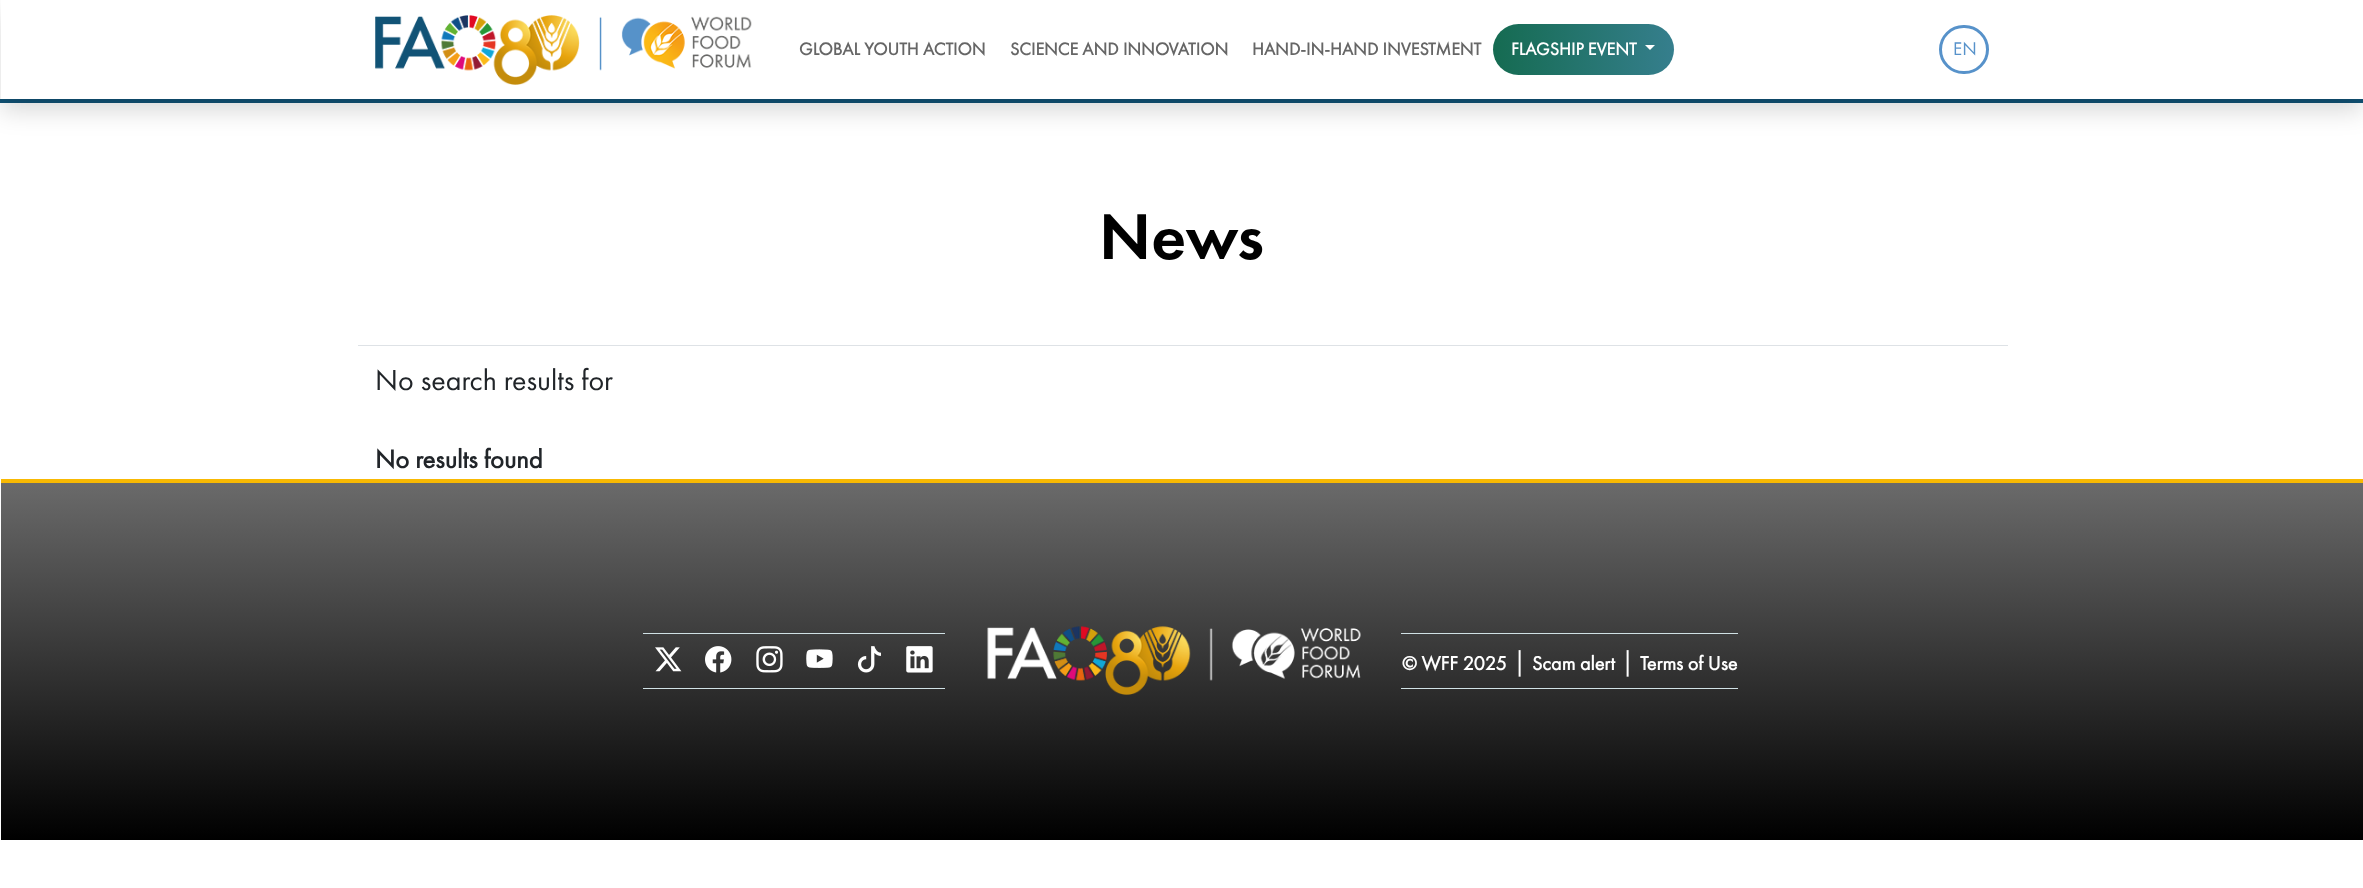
<svg xmlns="http://www.w3.org/2000/svg" width="2363" height="888" viewBox="0 0 2363 888">
  <style>
    .t1 { font: bold 18px Futura PT; fill: #666; }
    .t2 { font: bold 18px Futura PT; fill: #fff; }
    .t3 { font: 19px Futura PT; fill: #5792ca; }
    .t4 { font: 500 67px Futura PT; fill: #000; }
    .t5 { font: 30px Futura PT; fill: #212529; }
    .t6 { font: bold 26.5px Futura PT; fill: #212529; }
    .t7 { font: bold 20px Futura PT; fill: #fff; }
    .t8 { font: 26.5px Futura PT; fill: #fff; }
  </style>
  <defs>
    <linearGradient id="g1" gradientUnits="userSpaceOnUse" x1="1493" y1="49" x2="1855" y2="49"><stop offset="0" stop-color="#156b51"/><stop offset="1" stop-color="#5692c9"/></linearGradient>
    <linearGradient id="g2" gradientUnits="userSpaceOnUse" x1="1182" y1="840" x2="1182" y2="483"><stop offset="0" stop-color="#000"/><stop offset="1" stop-color="#6a6a6a"/></linearGradient>
  </defs>
  <rect width="100%" height="100%" fill="#fff"/>
  <rect x="0" y="99" width="2363" height="4" fill="#115376"/>
  <rect x="1" y="13" width="2362" height="98" fill="#00000026" filter="blur(12px)"/>
  <rect x="1" y="0" width="2362" height="99" fill="#fff"/>
  <image x="375" y="15" width="377" height="70" href="images/1.png"/>
  <text x="799" y="55" class="t1">GLOBAL YOUTH ACTION</text>
  <text x="1010" y="55" class="t1">SCIENCE AND INNOVATION</text>
  <text x="1252" y="55" class="t1">HAND-IN-HAND INVESTMENT</text>
  <rect x="1493" y="24" width="181" height="51" rx="25.5" fill="url(#g1)"/>
  <text x="1511" y="55" class="t2">FLAGSHIP EVENT</text>
  <path d="M1645 45H1655L1650 50Z" fill="#fff"/>
  <rect x="1940.5" y="26.5" width="47" height="46" rx="23" fill="none" stroke="#5792ca" stroke-width="3"/>
  <text x="1953" y="55" class="t3">EN</text>
  <text x="1099" y="259" class="t4">News</text>
  <rect x="358" y="345" width="1650" height="1" fill="#dee2e6"/>
  <text x="375" y="390" class="t5">No search results for</text>
  <text x="375" y="468" class="t6">No results found</text>
  <rect x="1" y="483" width="2362" height="357" fill="url(#g2)"/>
  <rect x="1" y="479" width="2362" height="4" fill="#f8b903"/>
  <rect x="643" y="633" width="302" height="1" fill="#d0e1e5"/>
  <rect x="643" y="688" width="302" height="1" fill="#d0e1e5"/>
  <image x="655" y="647" width="27" height="25" href="images/2.png"/>
  <image x="705" y="646" width="27" height="27" href="images/3.png"/>
  <image x="756" y="646" width="27" height="27" href="images/4.png"/>
  <image x="806" y="649" width="27" height="19" href="images/5.png"/>
  <image x="857" y="646" width="24" height="27" href="images/6.png"/>
  <image x="906" y="646" width="27" height="27" href="images/7.png"/>
  <image x="987" y="626" width="374" height="69" href="images/8.png"/>
  <rect x="1401" y="633" width="337" height="1" fill="#d0e1e5"/>
  <rect x="1401" y="688" width="337" height="1" fill="#d0e1e5"/>
  <text x="1402" y="670" class="t7">© WFF 2025</text>
  <text x="1513" y="670" class="t8">|</text>
  <text x="1532" y="670" class="t7">Scam alert</text>
  <text x="1621" y="670" class="t8">|</text>
  <text x="1640" y="670" class="t7">Terms of Use</text>
</svg>
